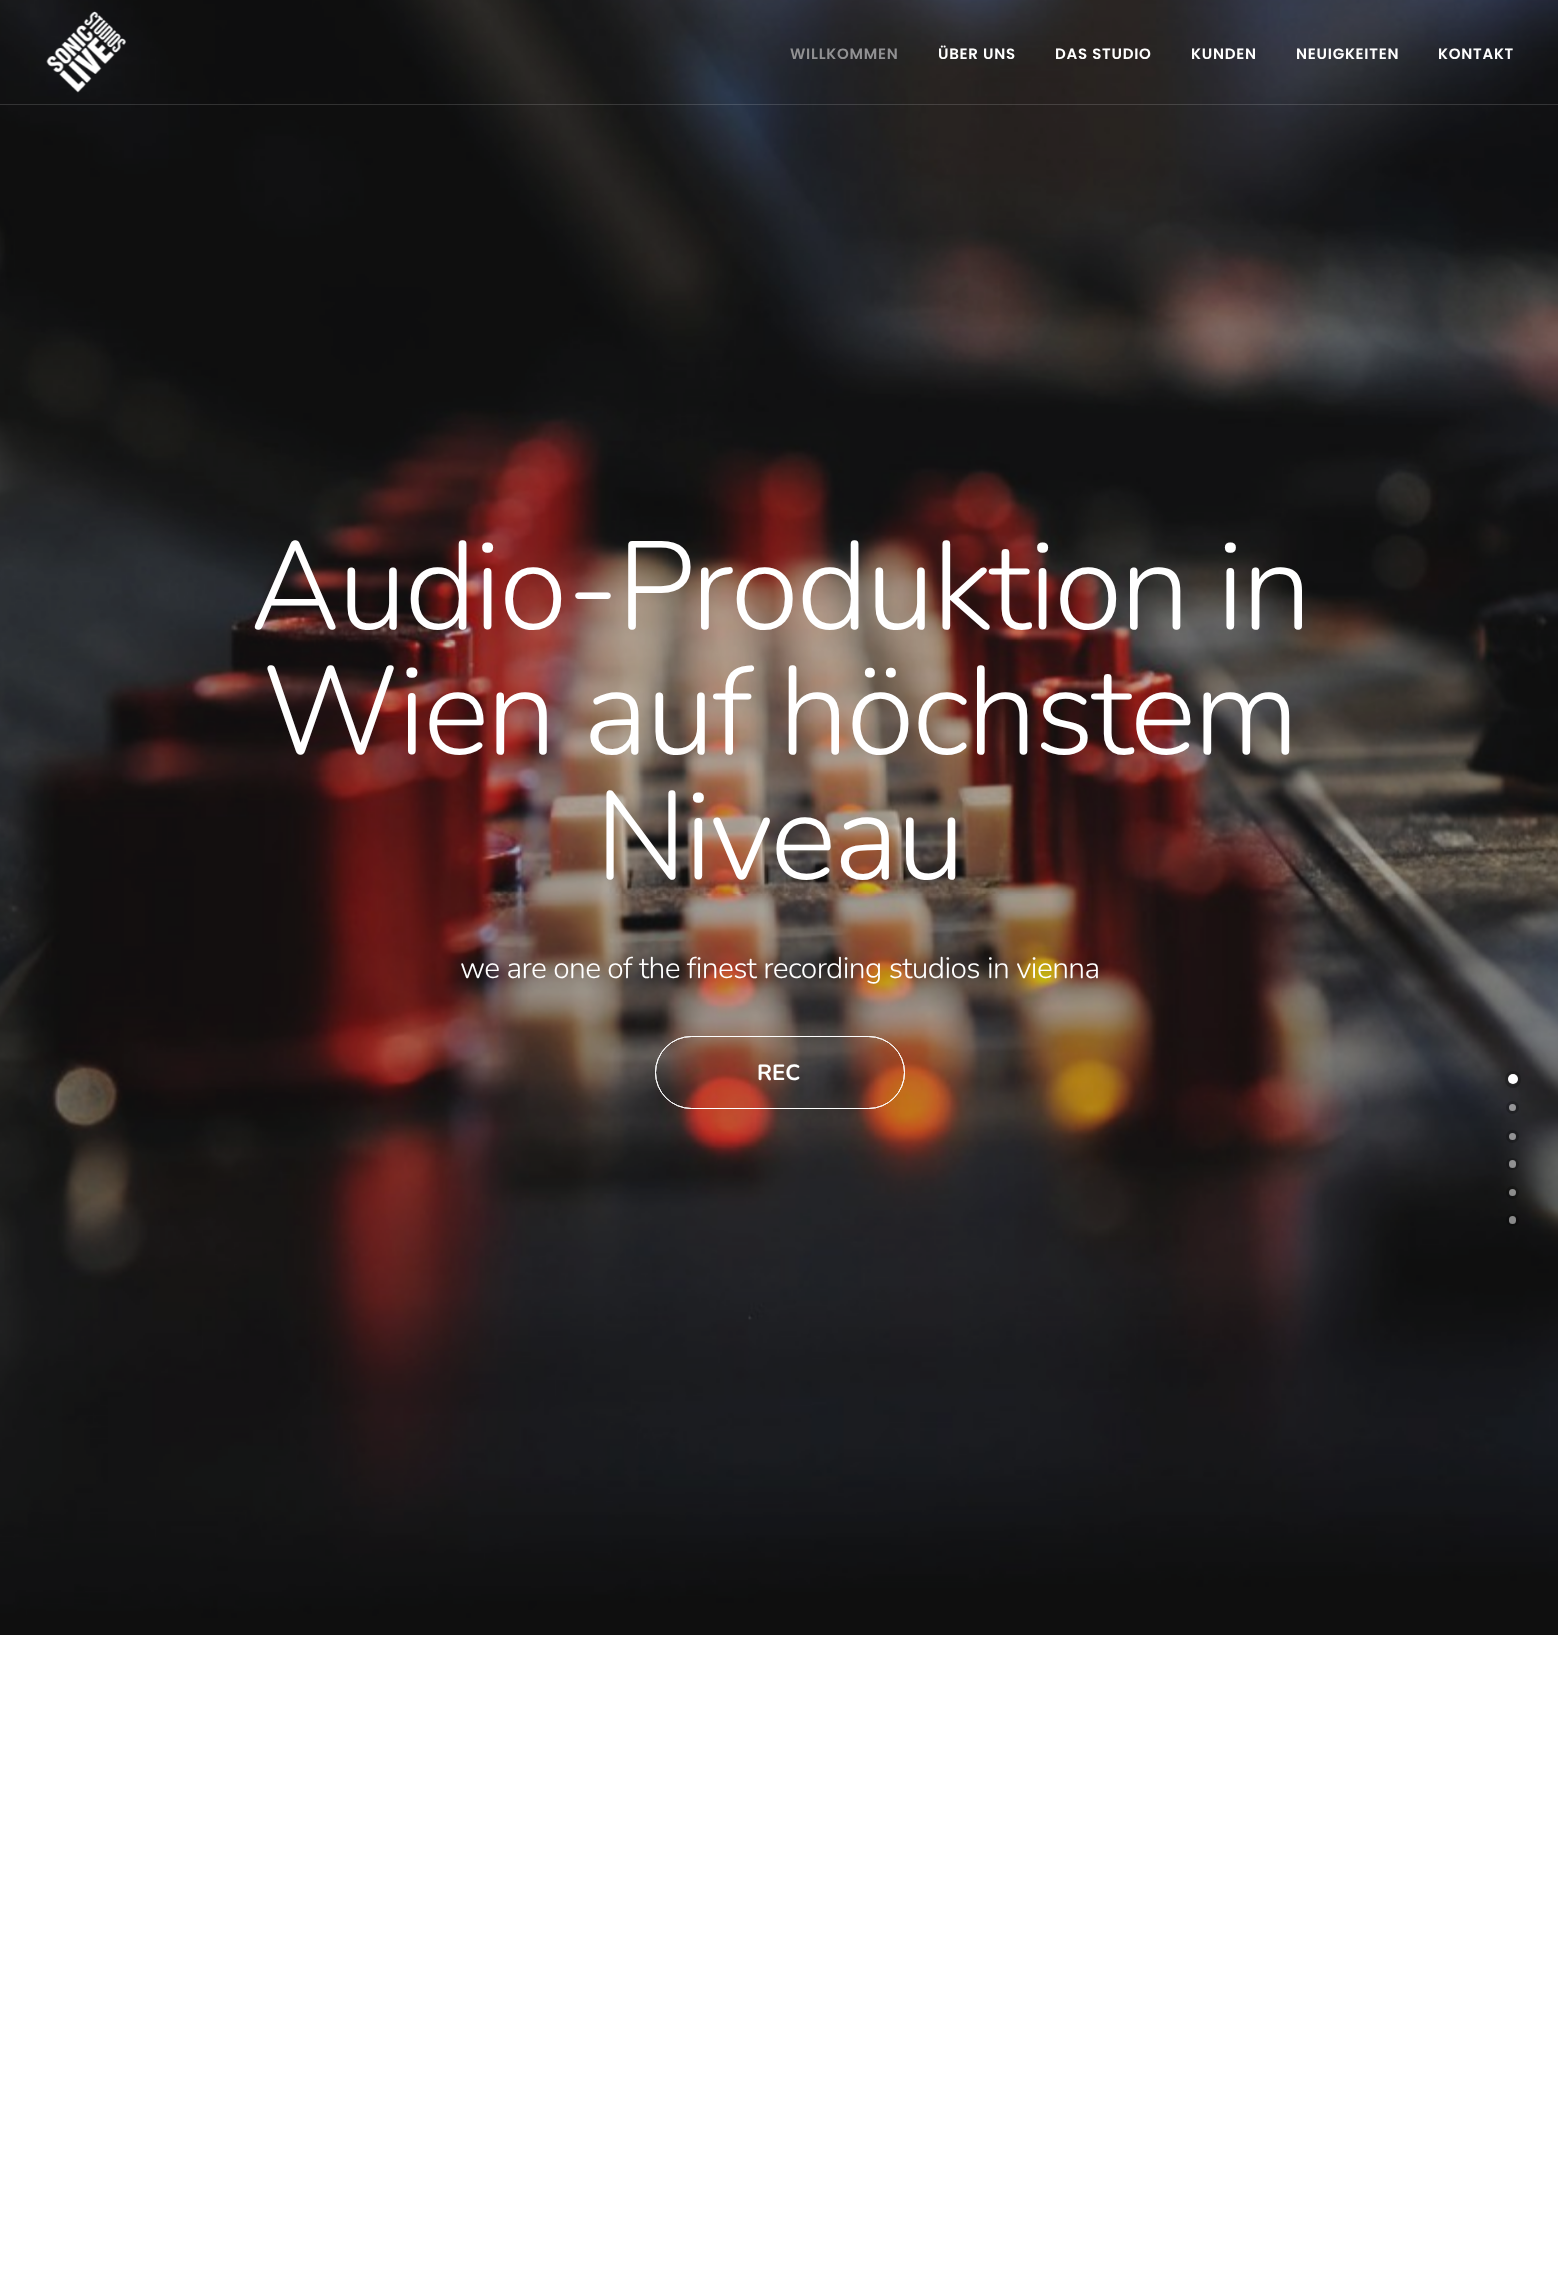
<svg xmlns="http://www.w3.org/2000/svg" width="1558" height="2288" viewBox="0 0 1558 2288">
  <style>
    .t1 { font: 600 15px Poppins; letter-spacing: 0.75px; fill: #919193; }
    .t2 { font: 600 15px Poppins; letter-spacing: 0.75px; fill: #fff; }
    .t3 { font: 300 125px Nunito; letter-spacing: -2.5px; fill: #fff; }
    .t4 { font: 300 30px Nunito; letter-spacing: -0.6px; fill: #fff; }
    .t5 { font: bold 22px Nunito; fill: #fff; }
  </style>
  <rect width="100%" height="100%" fill="#fff"/>
  <image x="0" y="0" width="1558" height="1635" href="images/2.png"/>
  <rect x="0" y="104" width="1558" height="1" fill="#ffffff26"/>
  <image x="46" y="11" width="81" height="82" href="images/1.png"/>
  <text x="790" y="59" class="t1">WILLKOMMEN</text>
  <text x="938" y="59" class="t2">ÜBER UNS</text>
  <text x="1055" y="59" class="t2">DAS STUDIO</text>
  <text x="1191" y="59" class="t2">KUNDEN</text>
  <text x="1296" y="59" class="t2">NEUIGKEITEN</text>
  <text x="1438" y="59" class="t2">KONTAKT</text>
  <text x="250" y="629" class="t3">Audio-Produktion in</text>
  <text x="262" y="754" class="t3">Wien auf höchstem</text>
  <text x="595" y="879" class="t3">Niveau</text>
  <text x="460" y="978" class="t4">we are one of the finest recording studios in vienna</text>
  <rect x="655.5" y="1036.5" width="249" height="72" rx="36" fill="none" stroke="#fff"/>
  <rect x="655.5" y="1036.5" width="249" height="72" rx="36" fill="none" stroke="#fff"/>
  <text x="757" y="1080" class="t5">REC</text>
  <rect x="1506.5" y="1072.5" width="13" height="14" rx="6.5" fill="none" stroke="#00000033" stroke-width="3"/>
  <circle cx="1513" cy="1079" r="5" fill="#fff"/>
  <circle cx="1512.5" cy="1107.5" r="5" fill="none" stroke="#00000033" stroke-width="3"/>
  <circle cx="1512.5" cy="1107.5" r="3.5" fill="#ffffff80"/>
  <circle cx="1512.5" cy="1136.5" r="5" fill="none" stroke="#00000033" stroke-width="3"/>
  <circle cx="1512.5" cy="1136.5" r="3.5" fill="#ffffff80"/>
  <rect x="1507.5" y="1159.5" width="10" height="9" rx="4.5" fill="none" stroke="#00000033" stroke-width="3"/>
  <rect x="1509" y="1160" width="7" height="8" rx="3.5" fill="#ffffff80"/>
  <circle cx="1512.5" cy="1192.5" r="5" fill="none" stroke="#00000033" stroke-width="3"/>
  <circle cx="1512.5" cy="1192.5" r="3.5" fill="#ffffff80"/>
  <rect x="1507.5" y="1215.5" width="10" height="9" rx="4.5" fill="none" stroke="#00000033" stroke-width="3"/>
  <rect x="1509" y="1216" width="7" height="8" rx="3.5" fill="#ffffff80"/>
</svg>
